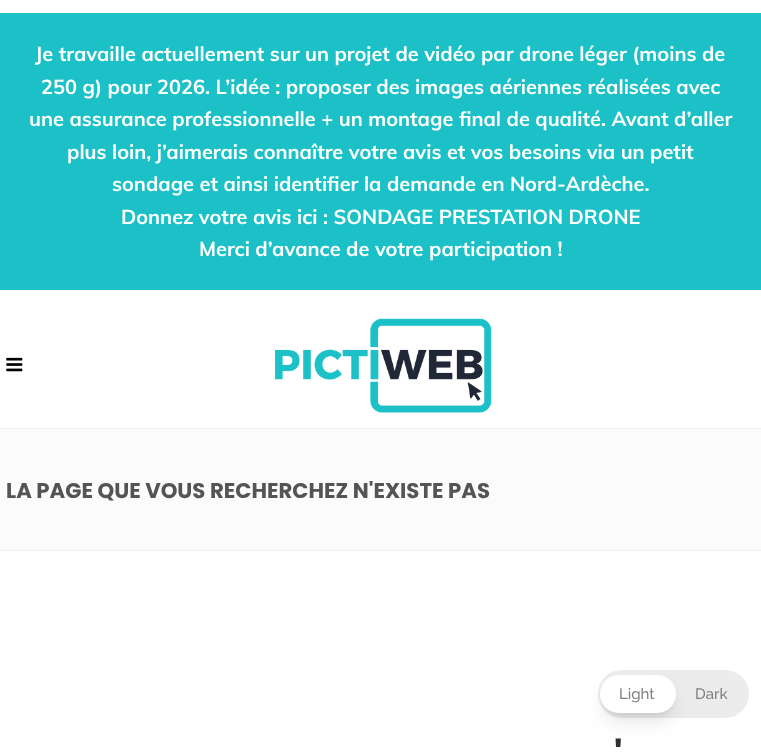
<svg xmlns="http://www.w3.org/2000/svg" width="761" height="754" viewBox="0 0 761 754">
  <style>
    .t1 { font: bold 20px Muli; fill: #fff; }
    .t2 { font: bold 21.25px Poppins; fill: #545454; }
    .t3 { font: bold 38px Poppins; fill: #303030; }
    .t4 { font: 500 15px Raleway; fill: #808080; }
  </style>
  <rect width="100%" height="100%" fill="#fff"/>
  <rect x="0" y="13" width="761" height="277" fill="#1cc1c7"/>
  <text x="35" y="61" class="t1">Je travaille actuellement sur un projet de vidéo par drone léger (moins de</text>
  <text x="41" y="94" class="t1">250 g) pour 2026. L’idée : proposer des images aériennes réalisées avec</text>
  <text x="29" y="126" class="t1">une assurance professionnelle + un montage final de qualité. Avant d’aller</text>
  <text x="67" y="159" class="t1">plus loin, j’aimerais connaître votre avis et vos besoins via un petit</text>
  <text x="112" y="191" class="t1">sondage et ainsi identifier la demande en Nord-Ardèche.</text>
  <text x="121" y="224" class="t1">Donnez votre avis ici : SONDAGE PRESTATION DRONE</text>
  <text x="199" y="256" class="t1">Merci d’avance de votre participation !</text>
  <rect x="0" y="428" width="761" height="1" fill="#f2f2f2"/>
  <image x="6" y="357" width="17" height="15" href="images/1.png"/>
  <image x="275" y="318" width="217" height="95" href="images/2.png"/>
  <rect x="0" y="429" width="761" height="121" fill="#fbfbfc"/>
  <rect x="0" y="550" width="761" height="1" fill="#f2f2f2"/>
  <text x="6" y="498" class="t2">LA PAGE QUE VOUS RECHERCHEZ N'EXISTE PAS</text>
  <text x="614" y="769" class="t3">'</text>
  <rect x="598" y="670" width="151" height="48" rx="24" fill="#ececec"/>
  <rect x="605" y="685" width="66" height="28" rx="14" fill="#0000001a" filter="blur(4px)"/>
  <rect x="604" y="691" width="69" height="30" rx="15" fill="#0000001a" filter="blur(9.5px)"/>
  <rect x="600" y="675" width="76" height="38" rx="19" fill="#fff"/>
  <text x="619" y="699" class="t4">Light</text>
  <text x="695" y="699" class="t4">Dark</text>
</svg>
